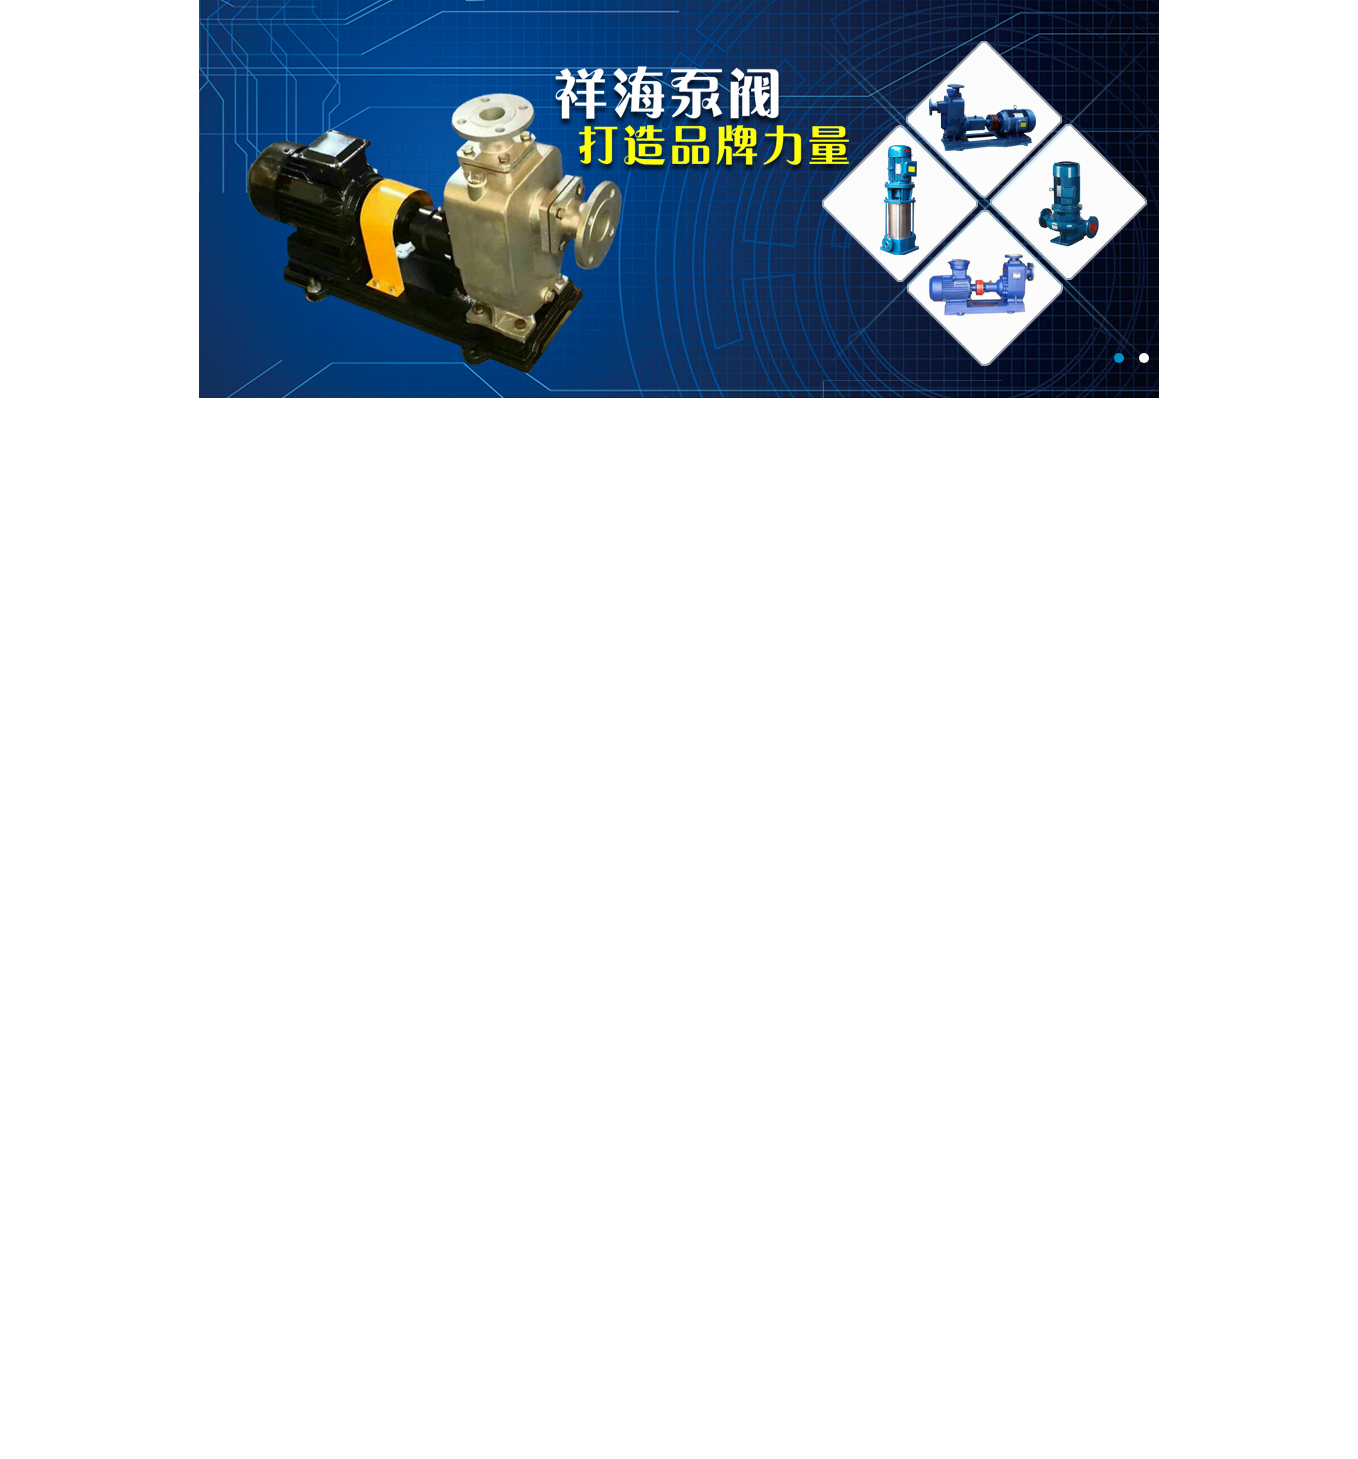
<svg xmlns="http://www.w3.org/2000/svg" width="1358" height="1459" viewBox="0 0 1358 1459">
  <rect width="100%" height="100%" fill="#fff"/>
  <image x="199" y="0" width="960" height="398" href="images/1.png"/>
  <circle cx="1119" cy="358" r="5" fill="#0092ce"/>
  <circle cx="1144" cy="358" r="5" fill="#fff"/>
</svg>
